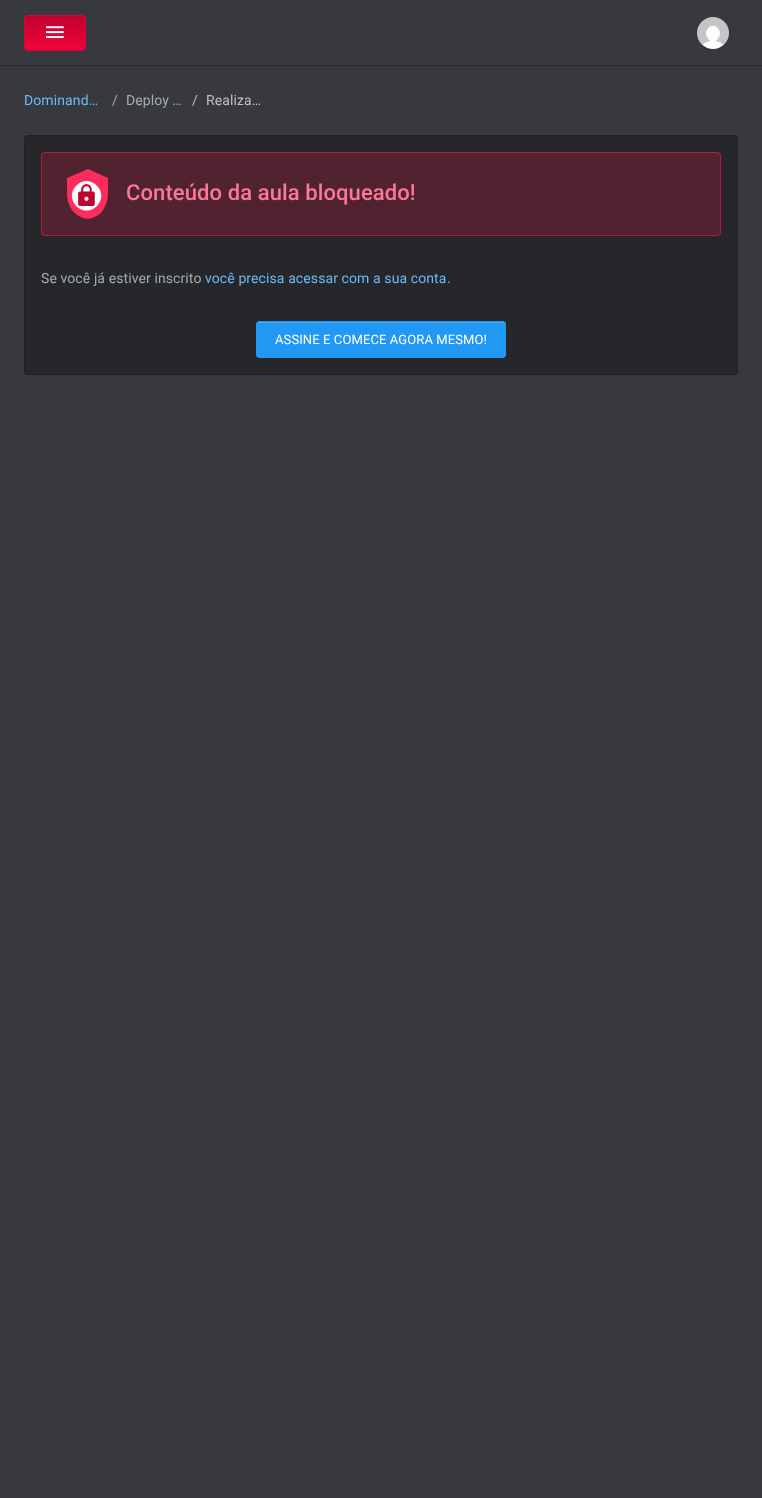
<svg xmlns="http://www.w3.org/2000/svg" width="762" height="1498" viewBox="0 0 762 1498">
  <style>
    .t1 { font: 14px Roboto; letter-spacing: 0.1px; fill: #6abaf7; }
    .t2 { font: 14px Roboto; letter-spacing: 0.1px; fill: #a5abb1; }
    .t3 { font: 14px Roboto; letter-spacing: 0.1px; fill: #bfbfbf; }
    .t4 { font: 500 22px Roboto; letter-spacing: 0.1px; fill: #fd7897; }
    .t5 { font: 13px Roboto; letter-spacing: 0.1px; fill: #fff; }
  </style>
  <defs>
    <clipPath id="clip1"><rect x="24" y="15" width="62" height="36" rx="4"/></clipPath>
    <linearGradient id="g1" gradientUnits="userSpaceOnUse" x1="55" y1="50" x2="55" y2="16"><stop offset="0" stop-color="#f2033b"/><stop offset="1" stop-color="#c0022e"/></linearGradient>
  </defs>
  <rect width="100%" height="100%" fill="#37393e"/>
  <rect x="0" y="65" width="762" height="1" fill="#2d2d2d"/>
  <g clip-path="url(#clip1)">
    <rect x="24" y="16" width="62" height="34" fill="url(#g1)"/>
  </g>
  <rect x="24.5" y="15.5" width="61" height="35" rx="3.5" fill="none" stroke="#d90334"/>
  <image x="46" y="26" width="18" height="13" href="images/1.png"/>
  <image x="697" y="17" width="32" height="32" href="images/2.png"/>
  <text x="24" y="105" class="t1">Dominand…</text>
  <text x="112" y="105" class="t2">/</text>
  <text x="126" y="105" class="t2">Deploy …</text>
  <text x="192" y="105" class="t3">/</text>
  <text x="206" y="105" class="t3">Realiza…</text>
  <rect x="24" y="135" width="714" height="240" rx="4" fill="#26272b"/>
  <rect x="24.5" y="135.5" width="713" height="239" rx="3.5" fill="none" stroke="#00000026"/>
  <rect x="41" y="152" width="680" height="84" rx="4" fill="#512331"/>
  <rect x="41.5" y="152.5" width="679" height="83" rx="3.5" fill="none" stroke="#fc134999"/>
  <path d="M88 169L108 178V194C108 200 106 205 103 210C100 215 94 218 88 219C81 218 76 215 72 210C69 205 67 200 67 194V178Z" fill="#fc2c5c"/>
  <path d="M76.5 185.5C90 172 110.5 192.5 97 206C83.5 220 62.5 199 76.5 185.5Z" fill="#fff"/>
  <image x="78" y="184" width="17" height="22" href="images/3.png"/>
  <text x="126" y="200" class="t4">Conteúdo da aula bloqueado!</text>
  <text x="41" y="283" class="t2">Se você já estiver inscrito</text>
  <text x="205" y="283" class="t1">você precisa acessar com a sua conta</text>
  <text x="447" y="283" class="t2">.</text>
  <rect x="25" y="304" width="712" height="1" fill="#232428"/>
  <rect x="256" y="321" width="250" height="37" rx="4" fill="#2198f3"/>
  <path d="M260 323H502C504 323 505 324 505 326C505 324 504 322 502 322H260C258 322 257 324 257 326C257 324 258 323 260 323Z" fill="#42a7f5"/>
  <rect x="256.5" y="321.5" width="249" height="36" rx="3.5" fill="none" stroke="#2198f3"/>
  <text x="275" y="344" class="t5">ASSINE E COMECE AGORA MESMO!</text>
</svg>
